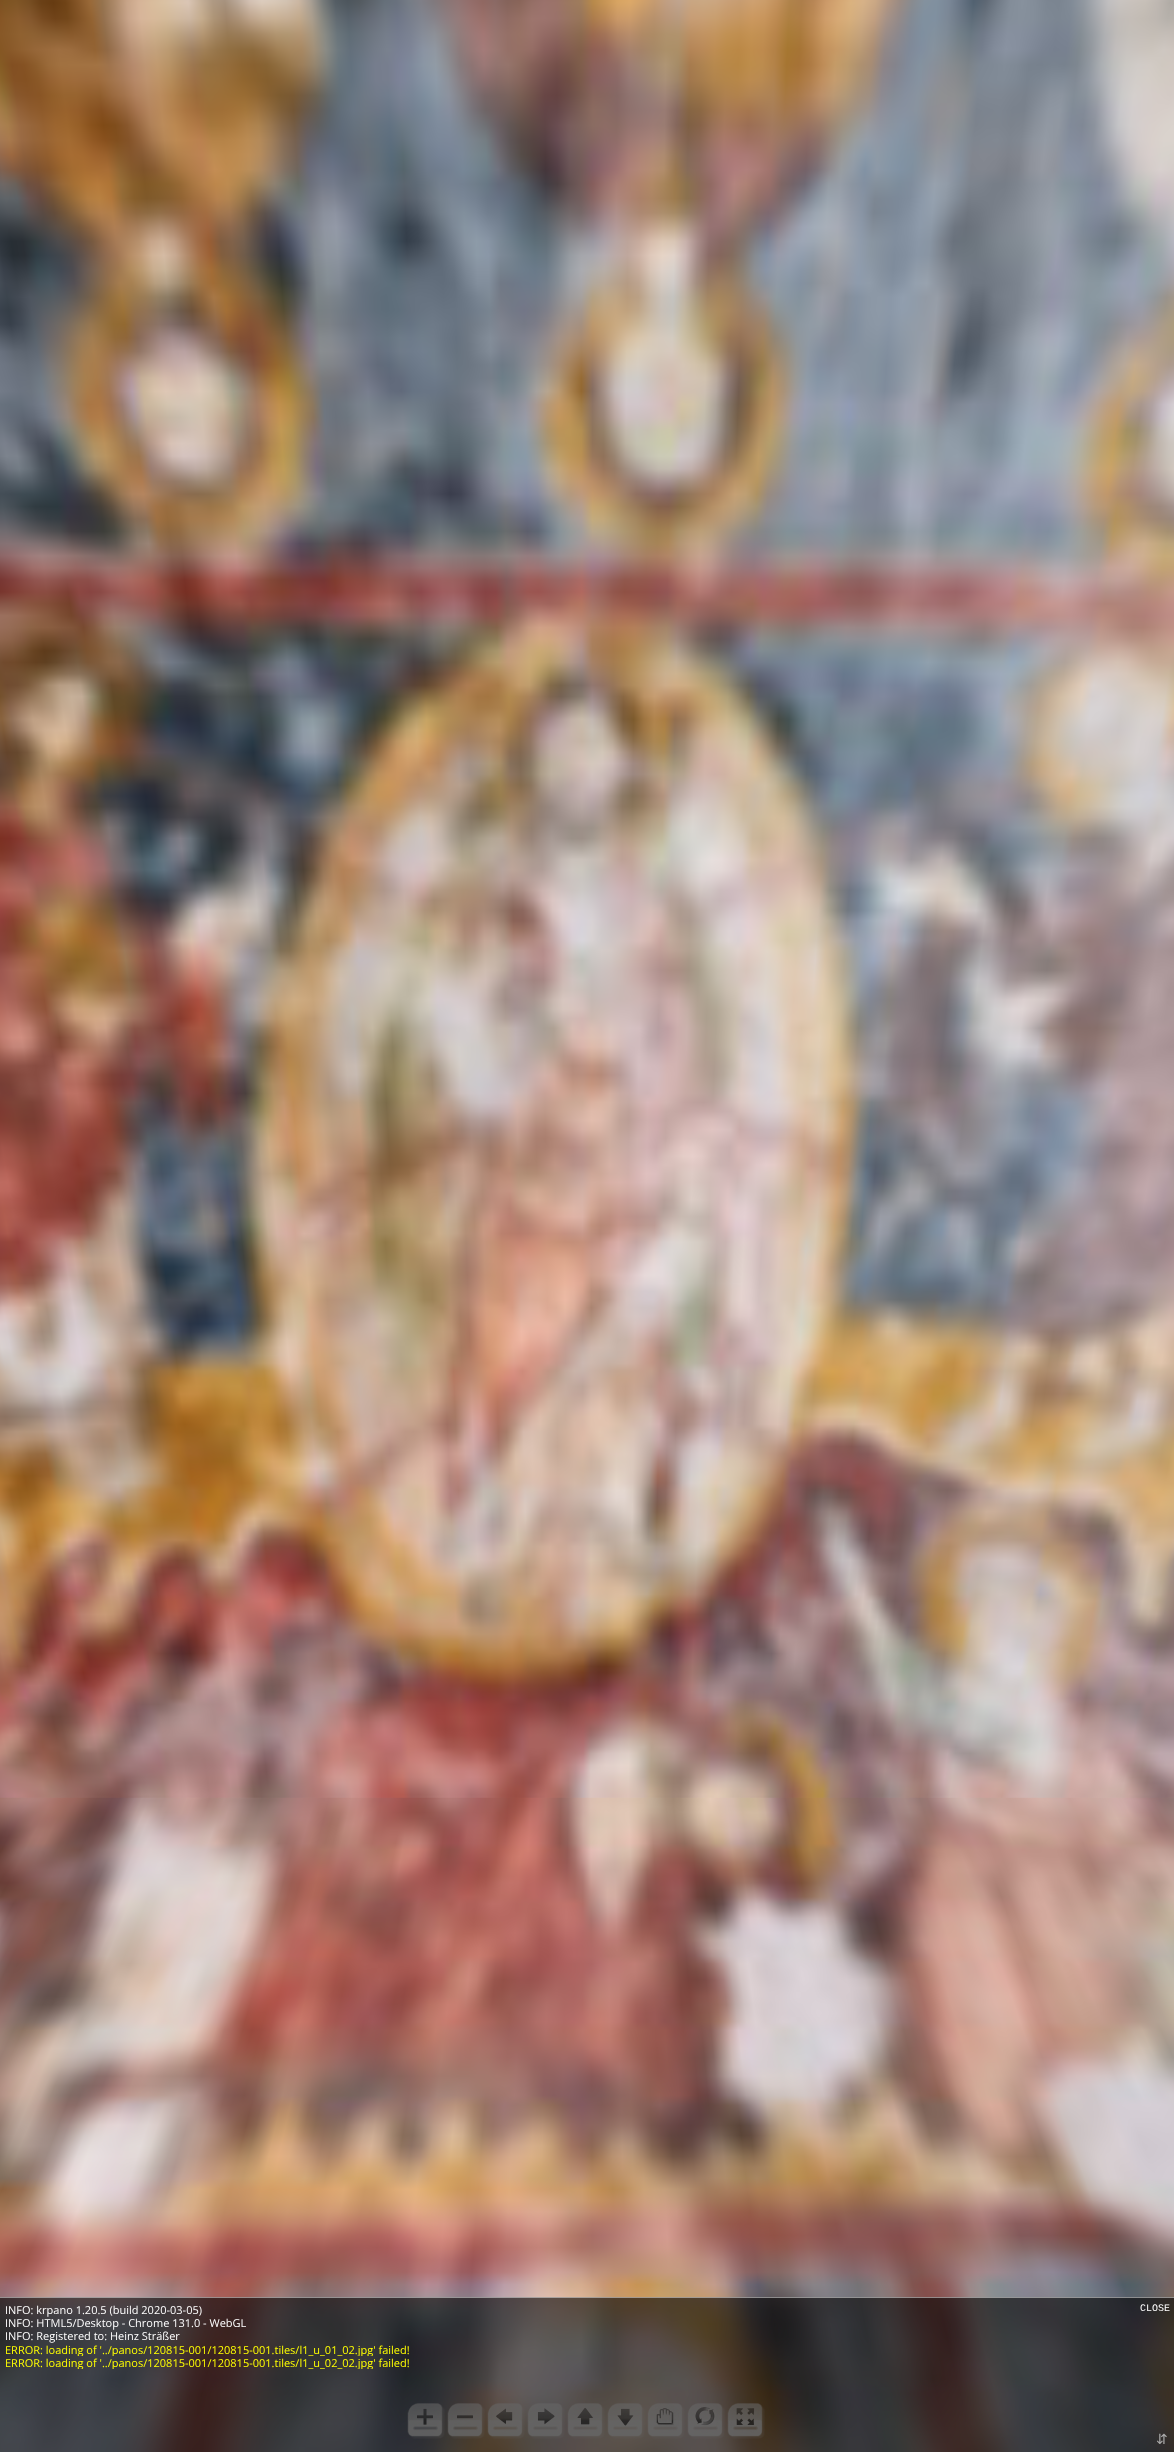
<svg xmlns="http://www.w3.org/2000/svg" width="1174" height="2452" viewBox="0 0 1174 2452">
  <style>
    .t1 { font: 11px Open Sans; fill: #fff; }
    .t2 { font: 11px Open Sans; fill: #ff0; }
    .t3 { font: 10px Liberation Mono; fill: #fff; }
    .t4 { font: 14px DejaVu Sans; fill: #aaa; }
  </style>
  <defs>
    <clipPath id="clip1"><rect x="5" y="2343" width="1169" height="13"/></clipPath>
    <clipPath id="clip2"><rect x="5" y="2356" width="1169" height="13"/></clipPath>
  </defs>
  <rect width="100%" height="100%" fill="#fff"/>
  <image x="0" y="0" width="1174" height="2452" href="images/1.png"/>
  <image x="407" y="2403" width="38" height="36" href="images/2.png"/>
  <image x="447" y="2403" width="38" height="36" href="images/3.png"/>
  <image x="487" y="2403" width="38" height="36" href="images/4.png"/>
  <image x="527" y="2403" width="38" height="36" href="images/5.png"/>
  <image x="567" y="2403" width="38" height="36" href="images/6.png"/>
  <image x="607" y="2403" width="38" height="36" href="images/7.png"/>
  <image x="647" y="2403" width="38" height="36" href="images/8.png"/>
  <image x="687" y="2403" width="38" height="36" href="images/9.png"/>
  <image x="727" y="2403" width="38" height="36" href="images/10.png"/>
  <rect x="0" y="2297" width="1174" height="155" fill="#00000099"/>
  <rect x="0" y="2297" width="1174" height="1" fill="#ffffff7a"/>
  <text x="5" y="2314" class="t1">INFO: krpano 1.20.5 (build 2020-03-05)</text>
  <text x="5" y="2327" class="t1">INFO: HTML5/Desktop - Chrome 131.0 - WebGL</text>
  <text x="5" y="2340" class="t1">INFO: Registered to: Heinz Sträßer</text>
  <g clip-path="url(#clip1)">
    <text x="5" y="2354" class="t2">ERROR: loading of '../panos/120815-001/120815-001.tiles/l1_u_01_02.jpg' failed!</text>
  </g>
  <g clip-path="url(#clip2)">
    <text x="5" y="2367" class="t2">ERROR: loading of '../panos/120815-001/120815-001.tiles/l1_u_02_02.jpg' failed!</text>
  </g>
  <text x="1140" y="2311" class="t3">CLOSE</text>
  <text x="1156" y="2444" class="t4">⇵</text>
</svg>
